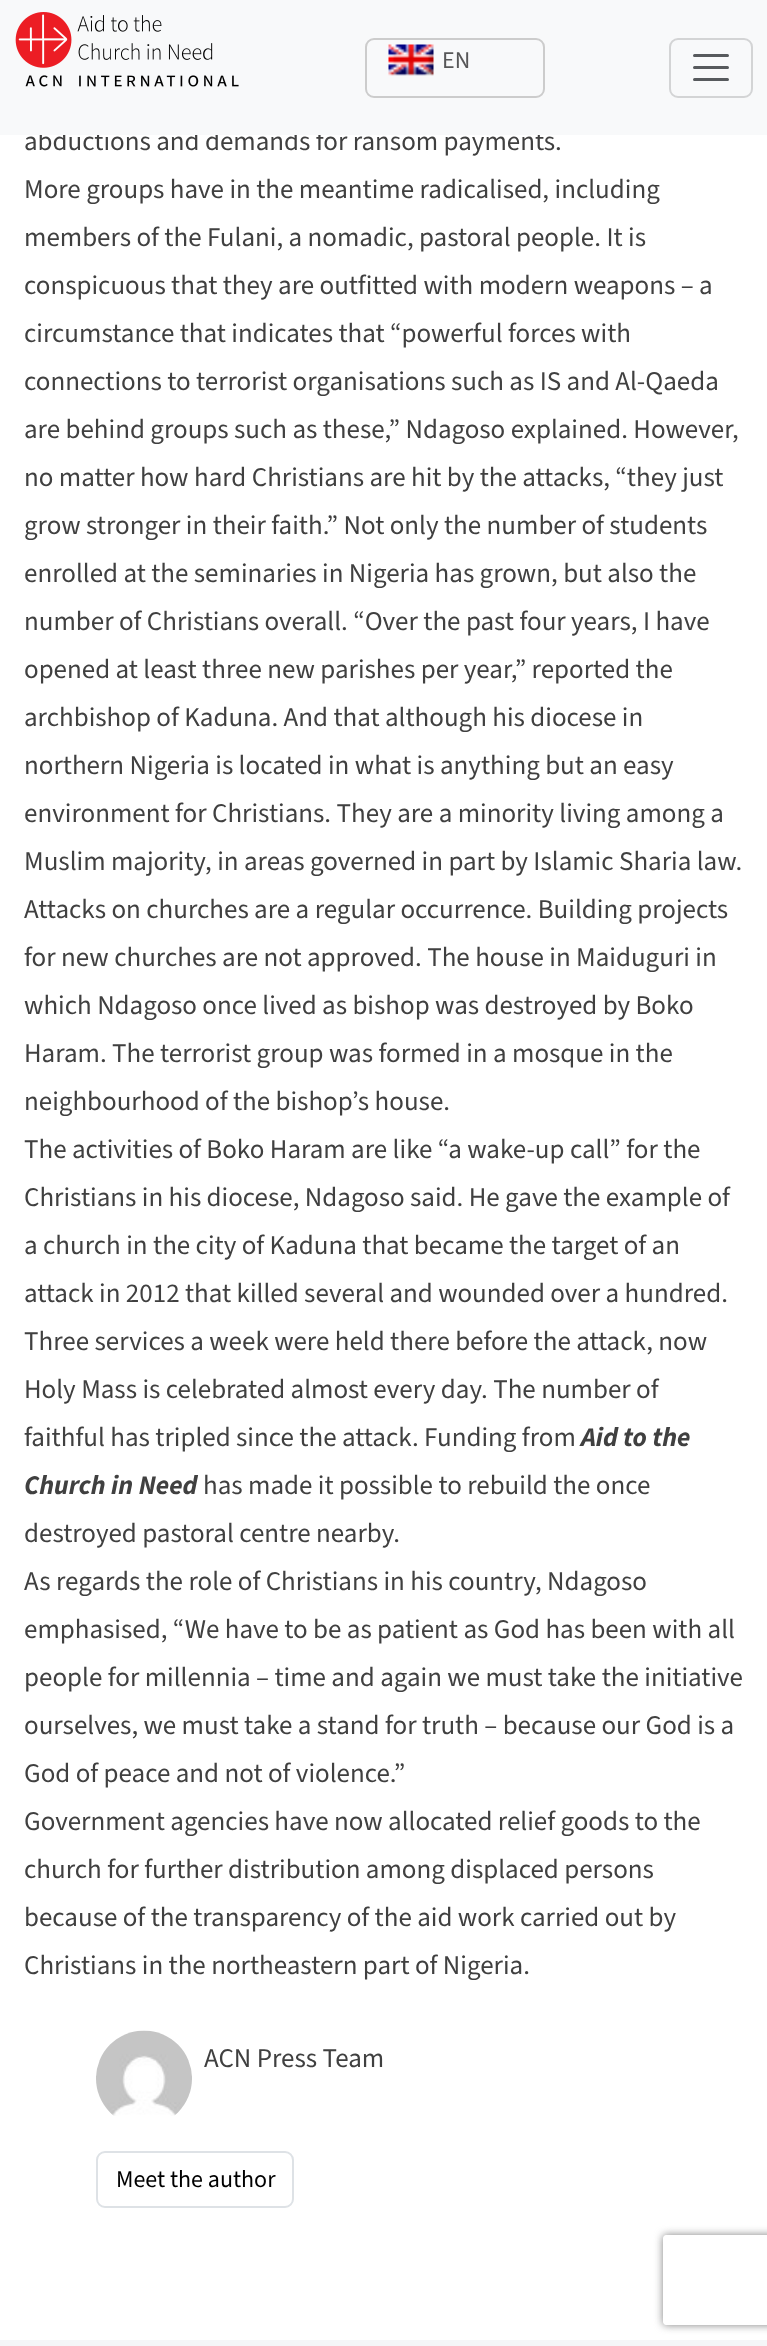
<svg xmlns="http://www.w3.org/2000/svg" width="767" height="2346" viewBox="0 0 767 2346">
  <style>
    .t1 { font: 27px 'Source Sans 3'; fill: #404040; }
    .t2 { font: 24px 'Source Sans 3'; fill: #575758; }
    .t3 { font: italic bold 27px 'Source Sans 3'; fill: #404040; }
    .t4 { font: 24px 'Source Sans 3'; fill: #000; }
  </style>
  <defs>
    <clipPath id="clip1"><path d="M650 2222H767V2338H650ZM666 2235H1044C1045.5 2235 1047 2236.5 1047 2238V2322C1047 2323.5 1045.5 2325 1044 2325H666C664.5 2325 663 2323.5 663 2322V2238C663 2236.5 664.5 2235 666 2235Z" clip-rule="evenodd"/></clipPath>
  </defs>
  <rect width="100%" height="100%" fill="#fff"/>
  <text x="24" y="150" class="t1">abductions and demands for ransom payments.</text>
  <rect x="0" y="0" width="767" height="135" fill="#f8f9fa"/>
  <image x="15" y="12" width="224" height="75" href="images/1.png"/>
  <rect x="366" y="39" width="178" height="58" rx="8" fill="none" stroke="#ccc" stroke-width="2"/>
  <image x="388" y="44" width="46" height="32" href="images/2.png"/>
  <text x="442" y="68" class="t2">EN</text>
  <rect x="670" y="39" width="82" height="58" rx="8" fill="none" stroke="#d3d4d5" stroke-width="2"/>
  <path d="M694.5 55.5H727.5M694.5 67.5H727.5M694.5 79.5H727.5" fill="none" stroke="#575a5d" stroke-width="3" stroke-linecap="round"/>
  <text x="24" y="198" class="t1">More groups have in the meantime radicalised, including</text>
  <text x="24" y="246" class="t1">members of the Fulani, a nomadic, pastoral people. It is</text>
  <text x="24" y="294" class="t1">conspicuous that they are outfitted with modern weapons – a</text>
  <text x="24" y="342" class="t1">circumstance that indicates that “powerful forces with</text>
  <text x="24" y="390" class="t1">connections to terrorist organisations such as IS and Al-Qaeda</text>
  <text x="24" y="438" class="t1">are behind groups such as these,” Ndagoso explained. However,</text>
  <text x="24" y="486" class="t1">no matter how hard Christians are hit by the attacks, “they just</text>
  <text x="24" y="534" class="t1">grow stronger in their faith.” Not only the number of students</text>
  <text x="24" y="582" class="t1">enrolled at the seminaries in Nigeria has grown, but also the</text>
  <text x="24" y="630" class="t1">number of Christians overall. “Over the past four years, I have</text>
  <text x="24" y="678" class="t1">opened at least three new parishes per year,” reported the</text>
  <text x="24" y="726" class="t1">archbishop of Kaduna. And that although his diocese in</text>
  <text x="24" y="774" class="t1">northern Nigeria is located in what is anything but an easy</text>
  <text x="24" y="822" class="t1">environment for Christians. They are a minority living among a</text>
  <text x="24" y="870" class="t1">Muslim majority, in areas governed in part by Islamic Sharia law.</text>
  <text x="24" y="918" class="t1">Attacks on churches are a regular occurrence. Building projects</text>
  <text x="24" y="966" class="t1">for new churches are not approved. The house in Maiduguri in</text>
  <text x="24" y="1014" class="t1">which Ndagoso once lived as bishop was destroyed by Boko</text>
  <text x="24" y="1062" class="t1">Haram. The terrorist group was formed in a mosque in the</text>
  <text x="24" y="1110" class="t1">neighbourhood of the bishop’s house.</text>
  <text x="24" y="1158" class="t1">The activities of Boko Haram are like “a wake-up call” for the</text>
  <text x="24" y="1206" class="t1">Christians in his diocese, Ndagoso said. He gave the example of</text>
  <text x="24" y="1254" class="t1">a church in the city of Kaduna that became the target of an</text>
  <text x="24" y="1302" class="t1">attack in 2012 that killed several and wounded over a hundred.</text>
  <text x="24" y="1350" class="t1">Three services a week were held there before the attack, now</text>
  <text x="24" y="1398" class="t1">Holy Mass is celebrated almost every day. The number of</text>
  <text x="24" y="1446" class="t1">faithful has tripled since the attack. Funding from</text>
  <text x="581" y="1446" class="t3">Aid to the</text>
  <text x="24" y="1494" class="t3">Church in Need</text>
  <text x="203" y="1494" class="t1">has made it possible to rebuild the once</text>
  <text x="24" y="1542" class="t1">destroyed pastoral centre nearby.</text>
  <text x="24" y="1590" class="t1">As regards the role of Christians in his country, Ndagoso</text>
  <text x="24" y="1638" class="t1">emphasised, “We have to be as patient as God has been with all</text>
  <text x="24" y="1686" class="t1">people for millennia – time and again we must take the initiative</text>
  <text x="24" y="1734" class="t1">ourselves, we must take a stand for truth – because our God is a</text>
  <text x="24" y="1782" class="t1">God of peace and not of violence.”</text>
  <text x="24" y="1830" class="t1">Government agencies have now allocated relief goods to the</text>
  <text x="24" y="1878" class="t1">church for further distribution among displaced persons</text>
  <text x="24" y="1926" class="t1">because of the transparency of the aid work carried out by</text>
  <text x="24" y="1974" class="t1">Christians in the northeastern part of Nigeria.</text>
  <image x="96" y="2030" width="96" height="86" href="images/3.png"/>
  <text x="204" y="2067" class="t1">ACN Press Team</text>
  <rect x="97" y="2152" width="196" height="55" rx="8" fill="none" stroke="#dee2e6" stroke-width="2"/>
  <text x="116" y="2187" class="t4">Meet the author</text>
  <rect x="0" y="2340" width="767" height="6" fill="#f5f6f8"/>
  <g clip-path="url(#clip1)">
    <rect x="663" y="2235" width="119" height="90" rx="3" fill="#808080" filter="blur(4px)"/>
  </g>
</svg>
